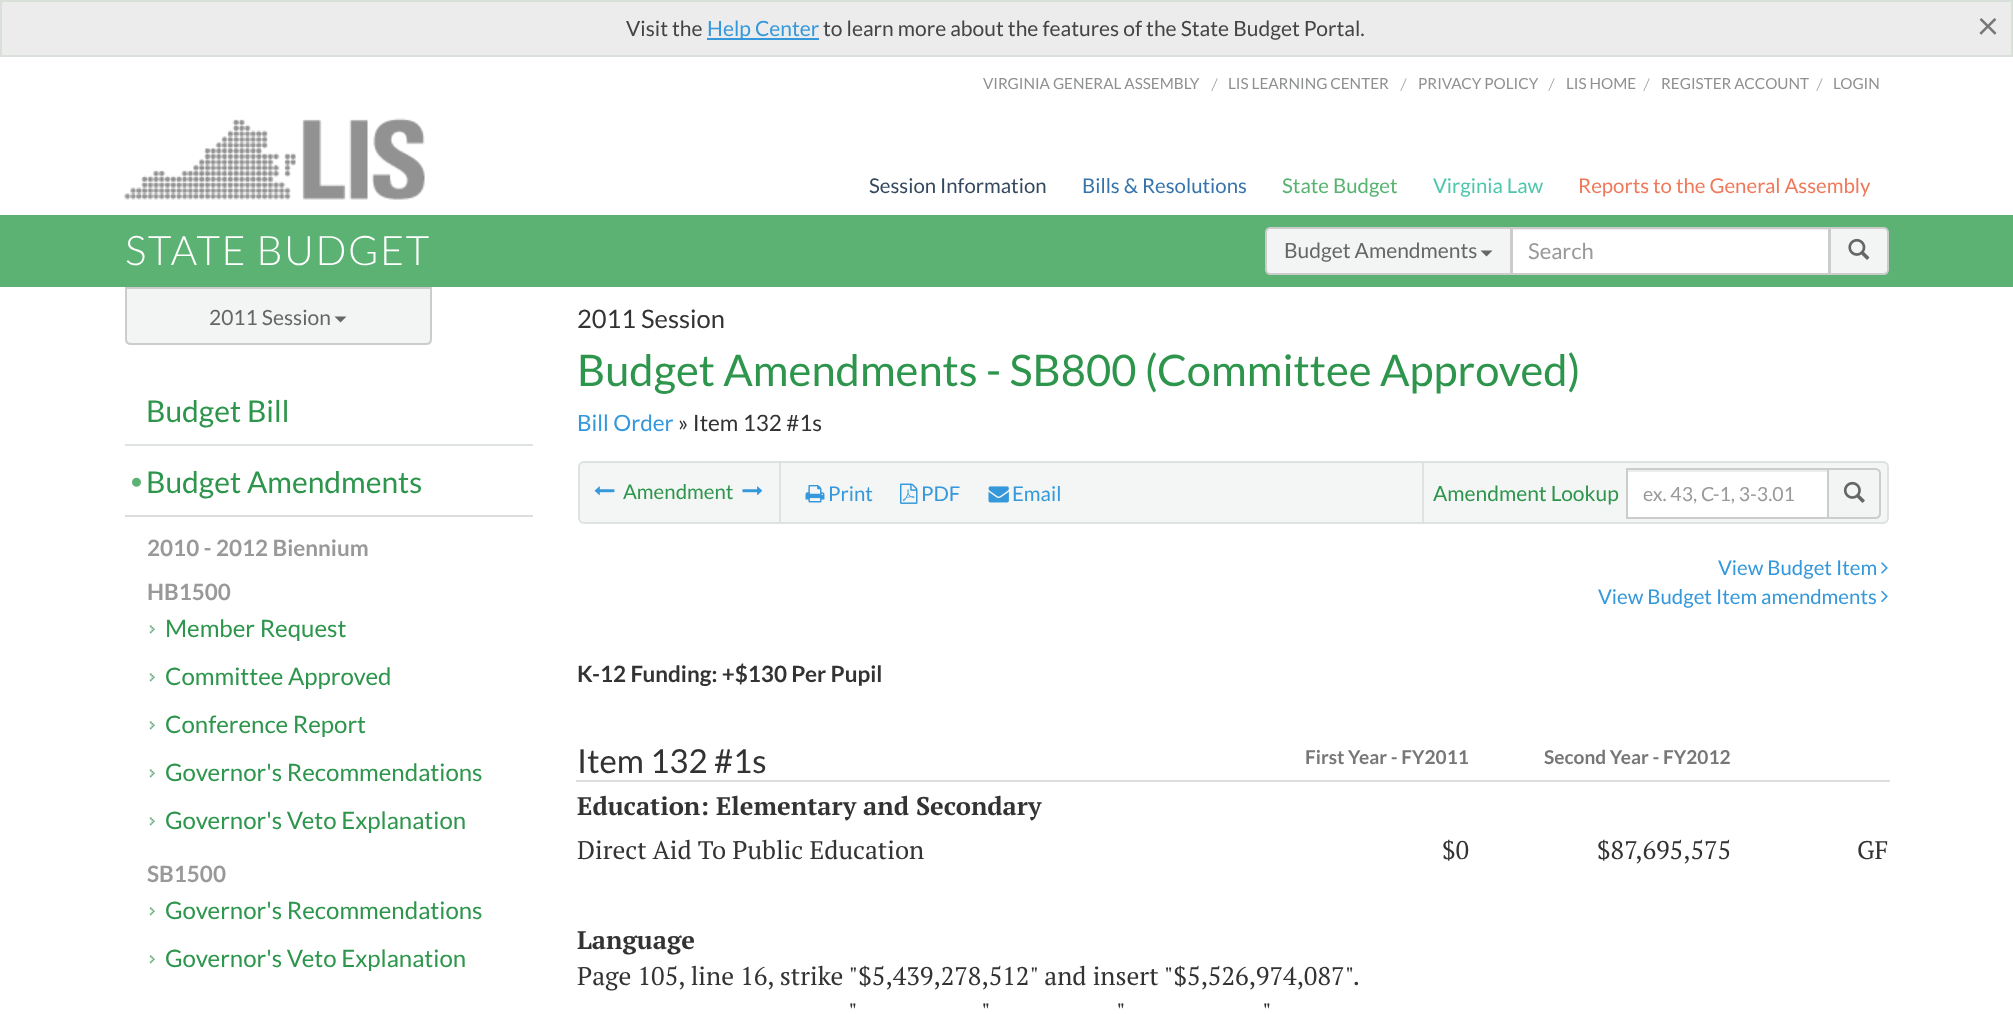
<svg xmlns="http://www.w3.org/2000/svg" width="2013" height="1014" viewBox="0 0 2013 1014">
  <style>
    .t1 { font: 21px Lato; fill: #444; }
    .t2 { font: 21px Lato; fill: #3498db; }
    .t3 { font: 38px Lato; fill: #777; }
    .t4 { font: 15.25px Lato; fill: #8f9090; }
    .t5 { font: 15.25px PT Serif; fill: #8f9090; }
    .t6 { font: 20.4px Lato; fill: #34495e; }
    .t7 { font: 20.4px Lato; fill: #3774ac; }
    .t8 { font: 20.4px Lato; fill: #57b36f; }
    .t9 { font: 20.4px Lato; fill: #4fc6ac; }
    .t10 { font: 20.4px Lato; fill: #ef795a; }
    .t11 { font: 300 40.75px Lato; letter-spacing: 1.5px; fill: #fff; }
    .t12 { font: 21px Lato; fill: #666; }
    .t13 { font: 22px Lato; fill: #999; }
    .t14 { font: 30px Lato; fill: #2e954c; }
    .t15 { font: bold 22.5px Lato; fill: #999; }
    .t16 { font: 24px Lato; fill: #2e954c; }
    .t17 { font: 25.5px Lato; fill: #333; }
    .t18 { font: 43.5px Lato; fill: #2e954c; }
    .t19 { font: 22.5px Lato; fill: #3498db; }
    .t20 { font: 22.5px Lato; fill: #333; }
    .t21 { font: 20.4px Lato; fill: #2e954c; }
    .t22 { font: 20.4px Lato; fill: #3498db; }
    .t23 { font: 21px Lato; fill: #2e954c; }
    .t24 { font: 19.5px Lato; fill: #999; }
    .t25 { font: bold 22.5px Lato; fill: #333; }
    .t26 { font: 33px Lato; fill: #333; }
    .t27 { font: bold 19.1px Lato; fill: #777; }
    .t28 { font: bold 25.5px PT Serif; fill: #333; }
    .t29 { font: 25.5px PT Serif; fill: #333; }
  </style>
  <rect width="100%" height="100%" fill="#fff"/>
  <rect x="1" y="1" width="2011" height="55" fill="#ececec" stroke="#d9e0da" stroke-width="2"/>
  <text x="626" y="36" class="t1">Visit the</text>
  <rect x="707" y="38" width="112" height="2" fill="#3498db"/>
  <text x="707" y="36" class="t2">Help Center</text>
  <text x="823" y="36" class="t1">to learn more about the features of the State Budget Portal.</text>
  <text x="1977" y="39" class="t3">×</text>
  <text x="983" y="89" class="t4">VIRGINIA GENERAL ASSEMBLY</text>
  <text x="1212" y="89" class="t5">/</text>
  <text x="1228" y="89" class="t4">LIS LEARNING CENTER</text>
  <text x="1401" y="89" class="t5">/</text>
  <text x="1418" y="89" class="t4">PRIVACY POLICY</text>
  <text x="1549" y="89" class="t5">/</text>
  <text x="1566" y="89" class="t4">LIS HOME</text>
  <text x="1644" y="89" class="t5">/</text>
  <text x="1661" y="89" class="t4">REGISTER ACCOUNT</text>
  <text x="1817" y="89" class="t5">/</text>
  <text x="1833" y="89" class="t4">LOGIN</text>
  <image x="124" y="118" width="301" height="82" href="images/1.png"/>
  <text x="869" y="193" class="t6">Session Information</text>
  <text x="1082" y="193" class="t7">Bills &amp; Resolutions</text>
  <text x="1282" y="193" class="t8">State Budget</text>
  <text x="1433" y="193" class="t9">Virginia Law</text>
  <text x="1578" y="193" class="t10">Reports to the General Assembly</text>
  <rect x="0" y="215" width="2013" height="72" fill="#5bb272"/>
  <text x="125" y="265" class="t11">STATE BUDGET</text>
  <rect x="1513" y="230" width="315" height="43" fill="#fff"/>
  <rect x="1512" y="229" width="317" height="1" fill="#ececec"/>
  <rect x="1512" y="228" width="317" height="46" fill="none" stroke="#ccc" stroke-width="2"/>
  <path d="M1270 228H1511V274H1270C1268 274 1266 272 1266 270V232C1266 230 1268 228 1270 228Z" fill="#f3f5f5" stroke="#ccc" stroke-width="2"/>
  <text x="1284" y="258" class="t12">Budget Amendments</text>
  <path d="M1480.5 250.5H1492.5L1486.5 256.5Z" fill="#666"/>
  <text x="1528" y="259" class="t13">Search</text>
  <path d="M1830 228H1884C1886 228 1888 230 1888 232V270C1888 272 1886 274 1884 274H1830Z" fill="#f3f5f5" stroke="#ccc" stroke-width="2"/>
  <image x="1848" y="238" width="22" height="22" href="images/2.png"/>
  <path d="M126 288H431V339C431 342 429 344 426 344H131C128 344 126 342 126 339Z" fill="#f3f5f5" stroke="#ccc" stroke-width="2"/>
  <text x="209" y="325" class="t12">2011 Session</text>
  <path d="M334.5 316.5H346.5L340.5 322.5Z" fill="#666"/>
  <rect x="125" y="444" width="408" height="2" fill="#dee2e3"/>
  <text x="146" y="422" class="t14">Budget Bill</text>
  <image x="132" y="477" width="9" height="10" href="images/3.png"/>
  <text x="146" y="493" class="t14">Budget Amendments</text>
  <rect x="125" y="515" width="408" height="2" fill="#ddd"/>
  <text x="147" y="556" class="t15">2010 - 2012 Biennium</text>
  <text x="147" y="600" class="t15">HB1500</text>
  <image x="149" y="625" width="6" height="9" href="images/4.png"/>
  <text x="165" y="637" class="t16">Member Request</text>
  <image x="149" y="673" width="6" height="9" href="images/4.png"/>
  <text x="165" y="685" class="t16">Committee Approved</text>
  <image x="149" y="721" width="6" height="9" href="images/4.png"/>
  <text x="165" y="733" class="t16">Conference Report</text>
  <image x="149" y="769" width="6" height="9" href="images/4.png"/>
  <text x="165" y="781" class="t16">Governor's Recommendations</text>
  <image x="149" y="817" width="6" height="9" href="images/4.png"/>
  <text x="165" y="829" class="t16">Governor's Veto Explanation</text>
  <text x="147" y="882" class="t15">SB1500</text>
  <image x="149" y="907" width="6" height="9" href="images/4.png"/>
  <text x="165" y="919" class="t16">Governor's Recommendations</text>
  <image x="149" y="955" width="6" height="9" href="images/4.png"/>
  <text x="165" y="967" class="t16">Governor's Veto Explanation</text>
  <text x="577" y="328" class="t17">2011 Session</text>
  <text x="577" y="386" class="t18">Budget Amendments - SB800 (Committee Approved)</text>
  <text x="577" y="431" class="t19">Bill Order</text>
  <text x="678" y="431" class="t20">» Item 132 #1s</text>
  <rect x="579" y="462" width="1309" height="61" rx="5" fill="#f4f5f5" stroke="#dee2e3" stroke-width="2"/>
  <rect x="779" y="462" width="2" height="60" fill="#dee2e3"/>
  <image x="594" y="486" width="21" height="9" href="images/5.png"/>
  <text x="623" y="499" class="t21">Amendment</text>
  <image x="742" y="486" width="21" height="9" href="images/6.png"/>
  <image x="805" y="485" width="20" height="18" href="images/7.png"/>
  <text x="828" y="501" class="t22">Print</text>
  <image x="900" y="483" width="18" height="21" href="images/8.png"/>
  <text x="921" y="501" class="t22">PDF</text>
  <image x="988" y="486" width="21" height="17" href="images/9.png"/>
  <text x="1012" y="501" class="t22">Email</text>
  <rect x="1422" y="462" width="2" height="60" fill="#dee2e3"/>
  <text x="1433" y="501" class="t23">Amendment Lookup</text>
  <rect x="1628" y="472" width="199" height="45" fill="#fff"/>
  <rect x="1628" y="470" width="199" height="2" fill="#ececec"/>
  <rect x="1627" y="469" width="201" height="49" fill="none" stroke="#ccc" stroke-width="2"/>
  <text x="1643" y="501" class="t24">ex. 43, C-1, 3-3.01</text>
  <path d="M1828 469H1876C1878 469 1880 471 1880 473V514C1880 516 1878 518 1876 518H1828Z" fill="#f3f5f5" stroke="#ccc" stroke-width="2"/>
  <image x="1843" y="481" width="22" height="22" href="images/10.png"/>
  <text x="1718" y="575" class="t22">View Budget Item</text>
  <image x="1881" y="562" width="7" height="12" href="images/11.png"/>
  <text x="1598" y="604" class="t22">View Budget Item amendments</text>
  <image x="1881" y="590" width="7" height="13" href="images/12.png"/>
  <text x="577" y="682" class="t25">K-12 Funding: +$130 Per Pupil</text>
  <text x="577" y="773" class="t26">Item 132 #1s</text>
  <text x="1305" y="764" class="t27">First Year - FY2011</text>
  <text x="1544" y="764" class="t27">Second Year - FY2012</text>
  <rect x="576" y="780" width="1314" height="2" fill="#ddd"/>
  <text x="577" y="815" class="t28">Education: Elementary and Secondary</text>
  <text x="577" y="859" class="t29">Direct Aid To Public Education</text>
  <text x="1442" y="859" class="t29">$0</text>
  <text x="1597" y="859" class="t29">$87,695,575</text>
  <text x="1857" y="859" class="t29">GF</text>
  <text x="577" y="949" class="t28">Language</text>
  <text x="577" y="985" class="t29">Page 105, line 16, strike "$5,439,278,512" and insert "$5,526,974,087".</text>
  <text x="848" y="1021" class="t29">"</text>
  <text x="981" y="1021" class="t29">"</text>
  <text x="1116" y="1021" class="t29">"</text>
  <text x="1262" y="1021" class="t29">"</text>
</svg>
